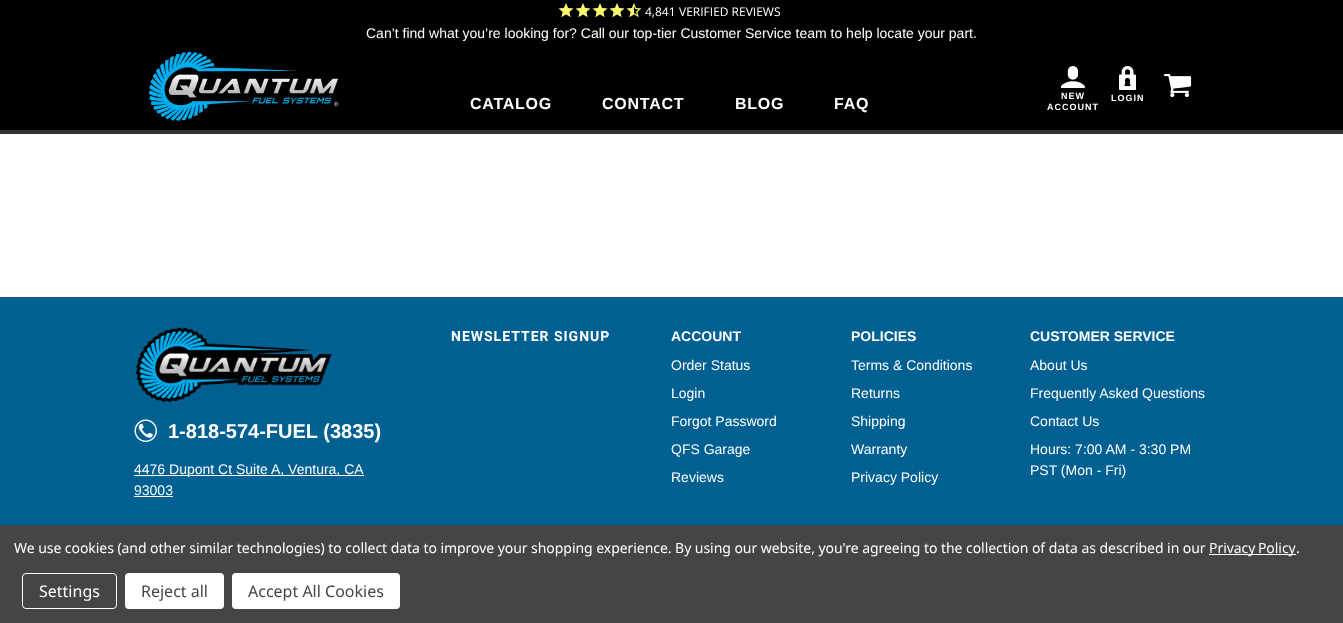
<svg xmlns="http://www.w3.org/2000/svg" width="1343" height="623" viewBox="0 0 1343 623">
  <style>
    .t1 { font: 12px Open Sans; fill: #fff; }
    .t2 { font: 14px Liberation Sans; fill: #fff; }
    .t3 { font: bold 16px Liberation Sans; letter-spacing: 0.75px; fill: #fff; }
    .t4 { font: bold 9px Liberation Sans; letter-spacing: 1px; fill: #fff; }
    .t5 { font: bold 14px Roboto; letter-spacing: 1px; fill: #fff; }
    .t6 { font: bold 20px Liberation Sans; fill: #fff; }
    .t7 { font: bold 14px Liberation Sans; fill: #fff; }
    .t8 { font: 14px Noto Sans; letter-spacing: -0.05px; fill: #fff; }
    .t9 { font: 16px Noto Sans; fill: #fff; }
    .t10 { font: 16px Noto Sans; fill: #454545; }
  </style>
  <rect width="100%" height="100%" fill="#fff"/>
  <rect x="0" y="0" width="1343" height="130" fill="#000"/>
  <image x="558" y="3" width="16" height="15" href="images/1.png"/>
  <image x="575" y="3" width="16" height="15" href="images/1.png"/>
  <image x="592" y="3" width="16" height="15" href="images/1.png"/>
  <image x="609" y="3" width="16" height="15" href="images/1.png"/>
  <image x="626" y="3" width="16" height="15" href="images/2.png"/>
  <text x="645" y="16" class="t1">4,841</text>
  <text x="679" y="16" class="t1">VERIFIED REVIEWS</text>
  <text x="366" y="38" class="t2">Can’t find what you’re looking for? Call our top-tier Customer Service team to help locate your part.</text>
  <rect x="0" y="130" width="1343" height="4" fill="#333"/>
  <text x="470" y="109" class="t3">CATALOG</text>
  <text x="602" y="109" class="t3">CONTACT</text>
  <text x="735" y="109" class="t3">BLOG</text>
  <text x="834" y="109" class="t3">FAQ</text>
  <image x="148" y="51" width="191" height="70" href="images/3.png"/>
  <image x="1164" y="74" width="28" height="23" href="images/4.png"/>
  <image x="1061" y="66" width="24" height="22" href="images/5.png"/>
  <text x="1061" y="99" class="t4">NEW</text>
  <text x="1047" y="110" class="t4">ACCOUNT</text>
  <image x="1119" y="66" width="17" height="24" href="images/6.png"/>
  <text x="1111" y="101" class="t4">LOGIN</text>
  <rect x="0" y="297" width="1343" height="228" fill="#006092"/>
  <text x="451" y="341" class="t5">NEWSLETTER SIGNUP</text>
  <image x="136" y="327" width="196" height="76" href="images/7.png"/>
  <image x="134" y="419" width="23" height="23" href="images/8.png"/>
  <text x="168" y="438" class="t6">1-818-574-FUEL (3835)</text>
  <rect x="134" y="475" width="230" height="1" fill="#fff"/>
  <text x="134" y="474" class="t2">4476 Dupont Ct Suite A, Ventura, CA</text>
  <text x="134" y="495" class="t2">93003</text>
  <rect x="134" y="496" width="39" height="1" fill="#fff"/>
  <text x="671" y="341" class="t7">ACCOUNT</text>
  <text x="671" y="370" class="t2">Order Status</text>
  <text x="671" y="398" class="t2">Login</text>
  <text x="671" y="426" class="t2">Forgot Password</text>
  <text x="671" y="454" class="t2">QFS Garage</text>
  <text x="671" y="482" class="t2">Reviews</text>
  <text x="851" y="341" class="t7">POLICIES</text>
  <text x="851" y="370" class="t2">Terms &amp; Conditions</text>
  <text x="851" y="398" class="t2">Returns</text>
  <text x="851" y="426" class="t2">Shipping</text>
  <text x="851" y="454" class="t2">Warranty</text>
  <text x="851" y="482" class="t2">Privacy Policy</text>
  <text x="1030" y="341" class="t7">CUSTOMER SERVICE</text>
  <text x="1030" y="370" class="t2">About Us</text>
  <text x="1030" y="398" class="t2">Frequently Asked Questions</text>
  <text x="1030" y="426" class="t2">Contact Us</text>
  <text x="1030" y="454" class="t2">Hours: 7:00 AM - 3:30 PM</text>
  <text x="1030" y="475" class="t2">PST (Mon - Fri)</text>
  <rect x="0" y="525" width="1343" height="98" fill="#454545"/>
  <text x="14" y="553" class="t8">We use cookies (and other similar technologies) to collect data to improve your shopping experience. By using our website, you're agreeing to the collection of data as described in our</text>
  <rect x="1209" y="554" width="87" height="1" fill="#fff"/>
  <text x="1209" y="553" word-spacing="-1" class="t8">Privacy Policy</text>
  <text x="1296" y="553" class="t8">.</text>
  <rect x="22.5" y="573.5" width="94" height="35" rx="3.5" fill="none" stroke="#fff"/>
  <text x="39" y="597" class="t9">Settings</text>
  <rect x="125" y="573" width="99" height="36" rx="4" fill="#fff"/>
  <text x="141" y="597" class="t10">Reject all</text>
  <rect x="232" y="573" width="168" height="36" rx="4" fill="#fff"/>
  <text x="248" y="597" class="t10">Accept All Cookies</text>
</svg>
